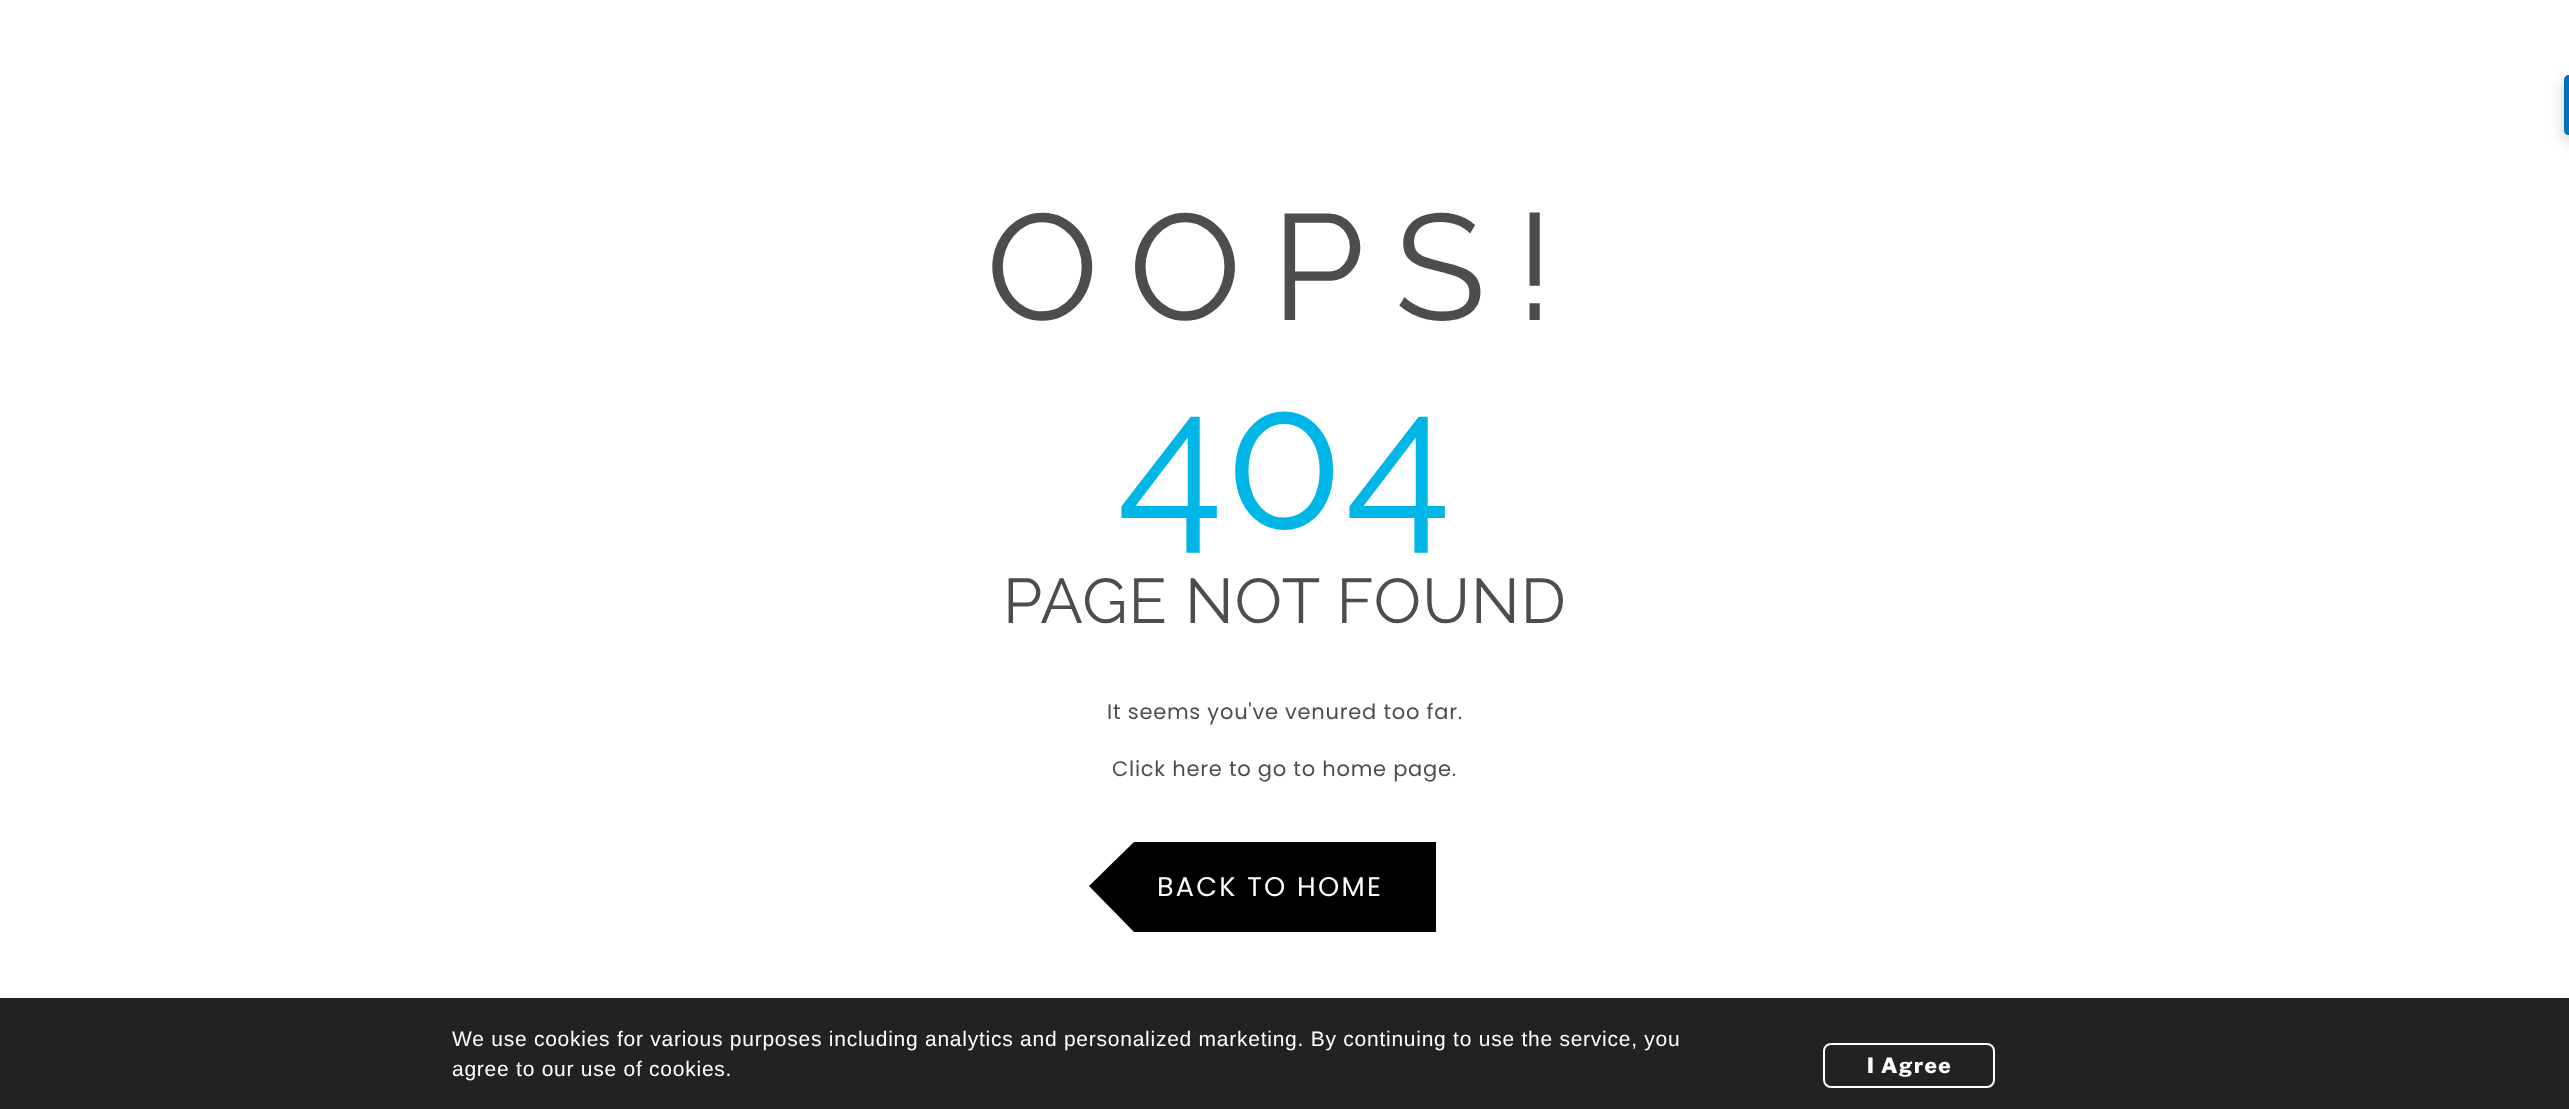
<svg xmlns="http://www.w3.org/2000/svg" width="2569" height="1109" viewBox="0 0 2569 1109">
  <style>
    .t1 { font: 150px Raleway; letter-spacing: 30px; fill: #4d4d4d; }
    .t2 { font: 195px Raleway; letter-spacing: 1.1px; fill: #00b6e7; }
    .t3 { font: 63px Raleway; letter-spacing: 1.1px; fill: #4d4d4d; }
    .t4 { font: 21px Poppins; letter-spacing: 0.75px; fill: #4d4d4d; }
    .t5 { font: 27px Poppins; letter-spacing: 2.25px; fill: #fff; }
    .t6 { font: 21px Liberation Sans; letter-spacing: 0.75px; fill: #fff; }
    .t7 { font: 800 21px Libre Franklin; letter-spacing: 1.5px; fill: #fff; }
  </style>
  <rect width="100%" height="100%" fill="#fff"/>
  <rect x="2564" y="81" width="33" height="60" rx="5" fill="#00000033" filter="blur(7.5px)"/>
  <path d="M2569 75H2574V135H2569C2566 135 2564 133 2564 130V80C2564 77 2566 75 2569 75Z" fill="#0073b7"/>
  <text x="986" y="320" class="t1">OOPS!</text>
  <text x="1117" y="528" class="t2">404</text>
  <text x="1003" y="623" class="t3">PAGE NOT FOUND</text>
  <text x="1107" y="719" class="t4">It seems you've venured too far.</text>
  <text x="1112" y="776" class="t4">Click here to go to home page.</text>
  <rect x="1134" y="842" width="302" height="90" fill="#000"/>
  <path d="M1134 842V932L1089 886Z" fill="#000"/>
  <text x="1157" y="896" class="t5">BACK TO HOME</text>
  <rect x="0" y="998" width="2569" height="111" fill="#222"/>
  <text x="452" y="1046" class="t6">We use cookies for various purposes including analytics and personalized marketing. By continuing to use the service, you</text>
  <text x="452" y="1076" class="t6">agree to our use of cookies.</text>
  <rect x="1824" y="1044" width="170" height="43" rx="7" fill="none" stroke="#fff" stroke-width="2"/>
  <text x="1867" y="1073" class="t7">I Agree</text>
</svg>
